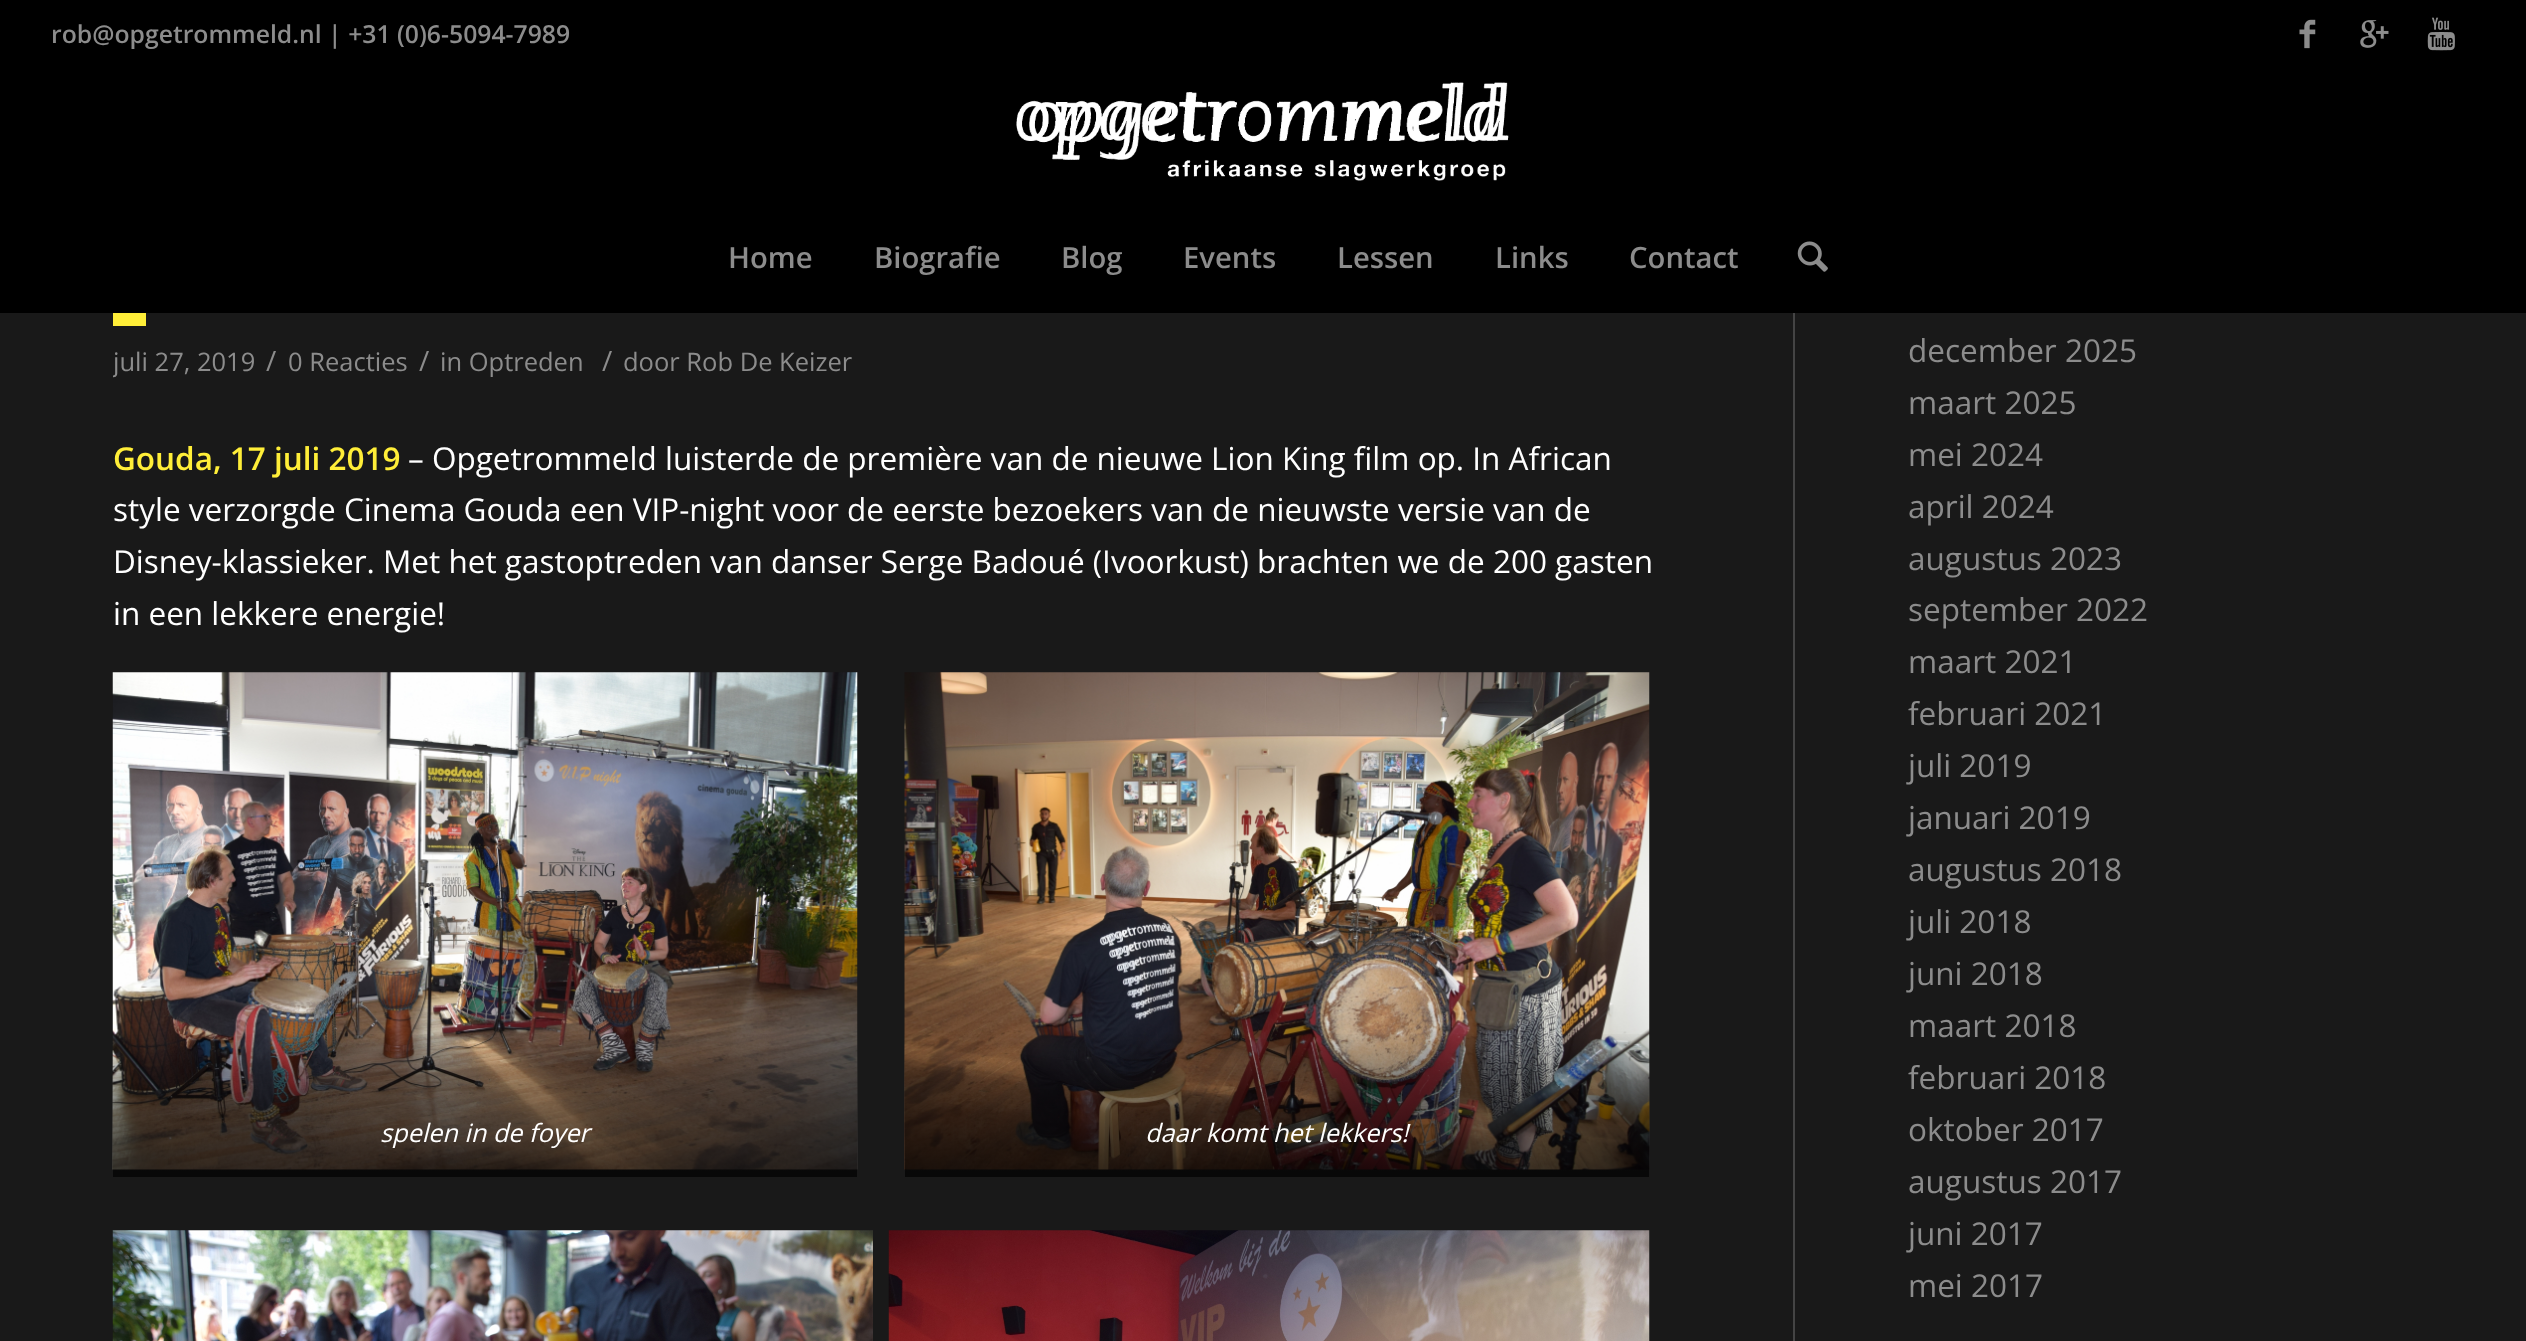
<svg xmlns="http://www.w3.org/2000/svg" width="2526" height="1341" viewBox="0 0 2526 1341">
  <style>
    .t1 { font: 600 24.75px Open Sans; fill: #8c8c8c; }
    .t2 { font: 600 29.25px Open Sans; fill: #8c8c8c; }
    .t3 { font: 25.5px Open Sans; fill: #8c8c8c; }
    .t4 { font: 28px Open Sans; fill: #8c8c8c; }
    .t5 { font: 600 31.5px Open Sans; fill: #ffee38; }
    .t6 { font: 31.5px Open Sans; fill: #fff; }
    .t7 { font: italic 25.25px Open Sans; fill: #fff; }
    .t8 { font: 31.5px Open Sans; fill: #8c8c8c; }
  </style>
  <defs>
    <clipPath id="clip1"><rect x="113" y="243" width="1680" height="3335"/></clipPath>
    <linearGradient id="g1" gradientUnits="userSpaceOnUse" x1="485" y1="1177" x2="485" y2="1031"><stop offset="0" stop-color="#000" stop-opacity="0.7"/><stop offset="0.7" stop-color="#000" stop-opacity="0.3"/><stop offset="1" stop-color="#000" stop-opacity="0"/></linearGradient>
    <linearGradient id="g2" gradientUnits="userSpaceOnUse" x1="1277" y1="1177" x2="1277" y2="1031"><stop offset="0" stop-color="#000" stop-opacity="0.7"/><stop offset="0.7" stop-color="#000" stop-opacity="0.3"/><stop offset="1" stop-color="#000" stop-opacity="0"/></linearGradient>
  </defs>
  <rect width="100%" height="100%" fill="#191919"/>
  <rect x="0" y="0" width="2526" height="313" fill="#000"/>
  <text x="51" y="43" class="t1">rob@opgetrommeld.nl | +31 (0)6-5094-7989</text>
  <image x="2299" y="19" width="17" height="30" href="images/1.png"/>
  <image x="2360" y="20" width="29" height="28" href="images/2.png"/>
  <image x="2427" y="17" width="28" height="34" href="images/3.png"/>
  <image x="1016" y="82" width="493" height="99" href="images/4.png"/>
  <text x="728" y="268" class="t2">Home</text>
  <text x="874" y="268" class="t2">Biografie</text>
  <text x="1061" y="268" class="t2">Blog</text>
  <text x="1183" y="268" class="t2">Events</text>
  <text x="1337" y="268" class="t2">Lessen</text>
  <text x="1495" y="268" class="t2">Links</text>
  <text x="1629" y="268" class="t2">Contact</text>
  <image x="1797" y="241" width="31" height="31" href="images/5.png"/>
  <rect x="1793" y="313" width="2" height="1028" fill="#444"/>
  <rect x="113" y="313" width="33" height="13" fill="#ffee38"/>
  <g clip-path="url(#clip1)">
    <text x="113" y="371" class="t3">juli 27, 2019</text>
  </g>
  <text x="266" y="371" class="t4">/</text>
  <text x="288" y="371" class="t3">0 Reacties</text>
  <text x="419" y="371" class="t4">/</text>
  <text x="440" y="371" class="t3">in Optreden</text>
  <text x="602" y="371" class="t4">/</text>
  <text x="623" y="371" class="t3">door Rob De Keizer</text>
  <text x="113" y="470" class="t5">Gouda, 17 juli 2019</text>
  <text x="408" y="470" class="t6">– Opgetrommeld luisterde de première van de nieuwe Lion King film op. In African</text>
  <text x="113" y="521" class="t6">style verzorgde Cinema Gouda een VIP-night voor de eerste bezoekers van de nieuwste versie van de</text>
  <text x="113" y="573" class="t6">Disney-klassieker. Met het gastoptreden van danser Serge Badoué (Ivoorkust) brachten we de 200 gasten</text>
  <text x="113" y="625" class="t6">in een lekkere energie!</text>
  <image x="112" y="672" width="746" height="498" href="images/6.png"/>
  <rect x="113" y="1034" width="744" height="143" fill="url(#g1)"/>
  <text x="380" y="1142" class="t7">spelen in de foyer</text>
  <image x="904" y="672" width="746" height="498" href="images/7.png"/>
  <rect x="905" y="1034" width="744" height="143" fill="url(#g2)"/>
  <text x="1145" y="1142" class="t7">daar komt het lekkers!</text>
  <image x="112" y="1230" width="761" height="111" href="images/8.png"/>
  <image x="888" y="1230" width="762" height="111" href="images/9.png"/>
  <text x="1908" y="362" class="t8">december 2025</text>
  <text x="1908" y="414" class="t8">maart 2025</text>
  <text x="1908" y="466" class="t8">mei 2024</text>
  <text x="1908" y="518" class="t8">april 2024</text>
  <text x="1908" y="570" class="t8">augustus 2023</text>
  <text x="1908" y="621" class="t8">september 2022</text>
  <text x="1908" y="673" class="t8">maart 2021</text>
  <text x="1908" y="725" class="t8">februari 2021</text>
  <text x="1908" y="777" class="t8">juli 2019</text>
  <text x="1908" y="829" class="t8">januari 2019</text>
  <text x="1908" y="881" class="t8">augustus 2018</text>
  <text x="1908" y="933" class="t8">juli 2018</text>
  <text x="1908" y="985" class="t8">juni 2018</text>
  <text x="1908" y="1037" class="t8">maart 2018</text>
  <text x="1908" y="1089" class="t8">februari 2018</text>
  <text x="1908" y="1141" class="t8">oktober 2017</text>
  <text x="1908" y="1193" class="t8">augustus 2017</text>
  <text x="1908" y="1245" class="t8">juni 2017</text>
  <text x="1908" y="1297" class="t8">mei 2017</text>
</svg>
